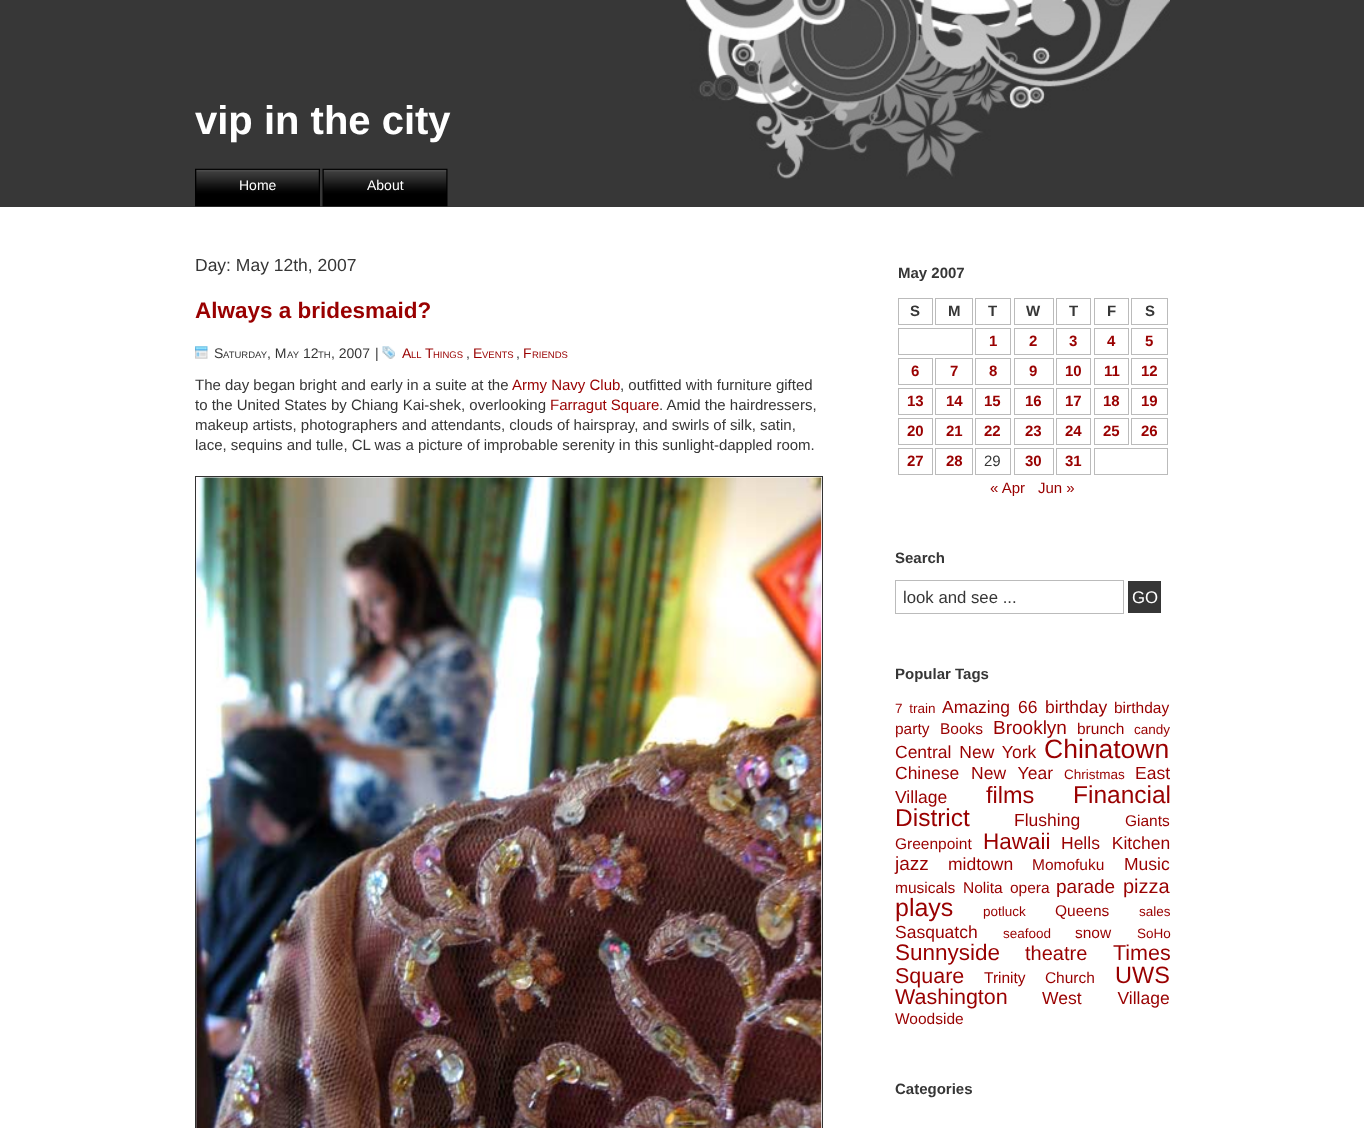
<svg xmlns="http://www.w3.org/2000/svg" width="1364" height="1128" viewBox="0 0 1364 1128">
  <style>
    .t1 { font: bold 40px Liberation Sans; fill: #fff; }
    .t2 { font: 14px Liberation Sans; fill: #fff; }
    .t3 { font: 17.5px Liberation Sans; fill: #363636; }
    .t4 { font: bold 22.5px Liberation Sans; fill: #900; }
    .t5 { font: 14px Liberation Sans; fill: #363636; }
    .t6 { font: 9.5px Liberation Sans; fill: #363636; }
    .t7 { font: 14px Liberation Sans; fill: #900; }
    .t8 { font: 9.5px Liberation Sans; fill: #900; }
    .t9 { font: 15px Liberation Sans; fill: #363636; }
    .t10 { font: 15px Liberation Sans; fill: #900; }
    .t11 { font: bold 15px Liberation Sans; fill: #363636; }
    .t12 { font: bold 15px Liberation Sans; fill: #900; }
    .t13 { font: 16.75px Liberation Sans; fill: #363636; }
    .t14 { font: 16.75px Liberation Sans; fill: #fff; }
    .t15 { font: 13.5px Liberation Sans; fill: #900; }
    .t16 { font: 17.5px Liberation Sans; fill: #900; }
    .t17 { font: 15.5px Liberation Sans; fill: #900; }
    .t18 { font: 19px Liberation Sans; fill: #900; }
    .t19 { font: 26.5px Liberation Sans; fill: #900; }
    .t20 { font: 23.5px Liberation Sans; fill: #900; }
    .t21 { font: 24.5px Liberation Sans; fill: #900; }
    .t22 { font: 22.5px Liberation Sans; fill: #900; }
    .t23 { font: 20px Liberation Sans; fill: #900; }
    .t24 { font: 25px Liberation Sans; fill: #900; }
    .t25 { font: 21.5px Liberation Sans; fill: #900; }
  </style>
  <rect width="100%" height="100%" fill="#fff"/>
  <rect x="0" y="0" width="1364" height="207" fill="#373737"/>
  <image x="685" y="0" width="485" height="179" href="images/1.png"/>
  <text x="195" y="134" class="t1">vip in the city</text>
  <image x="195" y="168" width="125" height="39" href="images/2.png"/>
  <text x="239" y="190" class="t2">Home</text>
  <image x="322" y="168" width="126" height="39" href="images/3.png"/>
  <text x="367" y="190" class="t2">About</text>
  <text x="195" y="271" class="t3">Day: May 12th, 2007</text>
  <text x="195" y="318" class="t4">Always a bridesmaid?</text>
  <image x="195" y="346" width="13" height="13" href="images/4.png"/>
  <text x="214" y="358" class="t5">S</text>
  <text x="223" y="358" class="t6">ATURDAY</text>
  <text x="267" y="358" class="t5">, M</text>
  <text x="287" y="358" class="t6">AY</text>
  <text x="303" y="358" class="t5">12</text>
  <text x="318" y="358" class="t6">TH</text>
  <text x="331" y="358" class="t5">, 2007</text>
  <text x="375" y="358" class="t5">|</text>
  <image x="382" y="346" width="13" height="13" href="images/5.png"/>
  <text x="402" y="358" class="t7">A</text>
  <text x="411" y="358" class="t8">LL</text>
  <text x="425" y="358" class="t7">T</text>
  <text x="433" y="358" class="t8">HINGS</text>
  <text x="466" y="358" class="t5">,</text>
  <text x="473" y="358" class="t7">E</text>
  <text x="482" y="358" class="t8">VENTS</text>
  <text x="516" y="358" class="t5">,</text>
  <text x="523" y="358" class="t7">F</text>
  <text x="532" y="358" class="t8">RIENDS</text>
  <text x="195" y="390" class="t9">The day began bright and early in a suite at the</text>
  <text x="512" y="390" class="t10">Army Navy Club</text>
  <text x="620" y="390" class="t9">, outfitted with furniture gifted</text>
  <text x="195" y="410" class="t9">to the United States by Chiang Kai-shek, overlooking</text>
  <text x="550" y="410" class="t10">Farragut Square</text>
  <text x="659" y="410" class="t9">. Amid the hairdressers,</text>
  <text x="195" y="430" class="t9">makeup artists, photographers and attendants, clouds of hairspray, and swirls of silk, satin,</text>
  <text x="195" y="450" class="t9">lace, sequins and tulle, CL was a picture of improbable serenity in this sunlight-dappled room.</text>
  <rect x="195.5" y="476.5" width="627" height="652" fill="none" stroke="#333"/>
  <image x="196" y="477" width="626" height="651" href="images/6.png"/>
  <text x="898" y="278" class="t11">May 2007</text>
  <rect x="898.5" y="298.5" width="34" height="26" fill="none" stroke="#bbb"/>
  <text x="910" y="316" class="t11">S</text>
  <rect x="935.5" y="298.5" width="37" height="26" fill="none" stroke="#bbb"/>
  <text x="948" y="316" class="t11">M</text>
  <rect x="975.5" y="298.5" width="35" height="26" fill="none" stroke="#bbb"/>
  <text x="988" y="316" class="t11">T</text>
  <rect x="1014.5" y="298.5" width="39" height="26" fill="none" stroke="#bbb"/>
  <text x="1026" y="316" class="t11">W</text>
  <rect x="1056.5" y="298.5" width="34" height="26" fill="none" stroke="#bbb"/>
  <text x="1069" y="316" class="t11">T</text>
  <rect x="1094.5" y="298.5" width="34" height="26" fill="none" stroke="#bbb"/>
  <text x="1107" y="316" class="t11">F</text>
  <rect x="1131.5" y="298.5" width="36" height="26" fill="none" stroke="#bbb"/>
  <text x="1145" y="316" class="t11">S</text>
  <rect x="898.5" y="328.5" width="74" height="26" fill="none" stroke="#bbb"/>
  <rect x="975.5" y="328.5" width="35" height="26" fill="none" stroke="#bbb"/>
  <text x="989" y="346" class="t12">1</text>
  <rect x="1014.5" y="328.5" width="39" height="26" fill="none" stroke="#bbb"/>
  <text x="1029" y="346" class="t12">2</text>
  <rect x="1056.5" y="328.5" width="34" height="26" fill="none" stroke="#bbb"/>
  <text x="1069" y="346" class="t12">3</text>
  <rect x="1094.5" y="328.5" width="34" height="26" fill="none" stroke="#bbb"/>
  <text x="1107" y="346" class="t12">4</text>
  <rect x="1131.5" y="328.5" width="36" height="26" fill="none" stroke="#bbb"/>
  <text x="1145" y="346" class="t12">5</text>
  <rect x="898.5" y="358.5" width="34" height="26" fill="none" stroke="#bbb"/>
  <text x="911" y="376" class="t12">6</text>
  <rect x="935.5" y="358.5" width="37" height="26" fill="none" stroke="#bbb"/>
  <text x="950" y="376" class="t12">7</text>
  <rect x="975.5" y="358.5" width="35" height="26" fill="none" stroke="#bbb"/>
  <text x="989" y="376" class="t12">8</text>
  <rect x="1014.5" y="358.5" width="39" height="26" fill="none" stroke="#bbb"/>
  <text x="1029" y="376" class="t12">9</text>
  <rect x="1056.5" y="358.5" width="34" height="26" fill="none" stroke="#bbb"/>
  <text x="1065" y="376" class="t12">10</text>
  <rect x="1094.5" y="358.5" width="34" height="26" fill="none" stroke="#bbb"/>
  <text x="1104" y="376" class="t12">11</text>
  <rect x="1131.5" y="358.5" width="36" height="26" fill="none" stroke="#bbb"/>
  <text x="1141" y="376" class="t12">12</text>
  <rect x="898.5" y="388.5" width="34" height="26" fill="none" stroke="#bbb"/>
  <text x="907" y="406" class="t12">13</text>
  <rect x="935.5" y="388.5" width="37" height="26" fill="none" stroke="#bbb"/>
  <text x="946" y="406" class="t12">14</text>
  <rect x="975.5" y="388.5" width="35" height="26" fill="none" stroke="#bbb"/>
  <text x="984" y="406" class="t12">15</text>
  <rect x="1014.5" y="388.5" width="39" height="26" fill="none" stroke="#bbb"/>
  <text x="1025" y="406" class="t12">16</text>
  <rect x="1056.5" y="388.5" width="34" height="26" fill="none" stroke="#bbb"/>
  <text x="1065" y="406" class="t12">17</text>
  <rect x="1094.5" y="388.5" width="34" height="26" fill="none" stroke="#bbb"/>
  <text x="1103" y="406" class="t12">18</text>
  <rect x="1131.5" y="388.5" width="36" height="26" fill="none" stroke="#bbb"/>
  <text x="1141" y="406" class="t12">19</text>
  <rect x="898.5" y="418.5" width="34" height="26" fill="none" stroke="#bbb"/>
  <text x="907" y="436" class="t12">20</text>
  <rect x="935.5" y="418.5" width="37" height="26" fill="none" stroke="#bbb"/>
  <text x="946" y="436" class="t12">21</text>
  <rect x="975.5" y="418.5" width="35" height="26" fill="none" stroke="#bbb"/>
  <text x="984" y="436" class="t12">22</text>
  <rect x="1014.5" y="418.5" width="39" height="26" fill="none" stroke="#bbb"/>
  <text x="1025" y="436" class="t12">23</text>
  <rect x="1056.5" y="418.5" width="34" height="26" fill="none" stroke="#bbb"/>
  <text x="1065" y="436" class="t12">24</text>
  <rect x="1094.5" y="418.5" width="34" height="26" fill="none" stroke="#bbb"/>
  <text x="1103" y="436" class="t12">25</text>
  <rect x="1131.5" y="418.5" width="36" height="26" fill="none" stroke="#bbb"/>
  <text x="1141" y="436" class="t12">26</text>
  <rect x="898.5" y="448.5" width="34" height="26" fill="none" stroke="#bbb"/>
  <text x="907" y="466" class="t12">27</text>
  <rect x="935.5" y="448.5" width="37" height="26" fill="none" stroke="#bbb"/>
  <text x="946" y="466" class="t12">28</text>
  <rect x="975.5" y="448.5" width="35" height="26" fill="none" stroke="#bbb"/>
  <text x="984" y="466" class="t9">29</text>
  <rect x="1014.5" y="448.5" width="39" height="26" fill="none" stroke="#bbb"/>
  <text x="1025" y="466" class="t12">30</text>
  <rect x="1056.5" y="448.5" width="34" height="26" fill="none" stroke="#bbb"/>
  <text x="1065" y="466" class="t12">31</text>
  <rect x="1094.5" y="448.5" width="73" height="26" fill="none" stroke="#bbb"/>
  <text x="990" y="493" class="t10">« Apr</text>
  <text x="1038" y="493" class="t10">Jun »</text>
  <text x="895" y="563" class="t11">Search</text>
  <rect x="895.5" y="580.5" width="228" height="33" fill="none" stroke="#bbb"/>
  <text x="903" y="603" class="t13">look and see ...</text>
  <rect x="1128" y="581" width="33" height="32" fill="#363636"/>
  <text x="1132" y="603" class="t14">GO</text>
  <text x="895" y="679" class="t11">Popular Tags</text>
  <text x="895" y="713" word-spacing="3" class="t15">7 train</text>
  <text x="942" y="713" word-spacing="3" class="t16">Amazing 66</text>
  <text x="1045" y="713" class="t16">birthday</text>
  <text x="1114" y="713" class="t17">birthday</text>
  <text x="895" y="734" class="t17">party</text>
  <text x="940" y="734" class="t17">Books</text>
  <text x="993" y="734" class="t18">Brooklyn</text>
  <text x="1077" y="734" class="t17">brunch</text>
  <text x="1134" y="734" class="t15">candy</text>
  <text x="895" y="758" word-spacing="3" class="t16">Central New York</text>
  <text x="1044" y="758" class="t19">Chinatown</text>
  <text x="895" y="779" word-spacing="7" class="t16">Chinese New Year</text>
  <text x="1064" y="779" class="t15">Christmas</text>
  <text x="1135" y="779" class="t16">East</text>
  <text x="895" y="803" class="t16">Village</text>
  <text x="986" y="803" class="t20">films</text>
  <text x="1073" y="803" class="t21">Financial</text>
  <text x="895" y="826" class="t21">District</text>
  <text x="1014" y="826" class="t16">Flushing</text>
  <text x="1125" y="826" class="t17">Giants</text>
  <text x="895" y="849" class="t17">Greenpoint</text>
  <text x="983" y="849" class="t22">Hawaii</text>
  <text x="1061" y="849" word-spacing="7" class="t16">Hells Kitchen</text>
  <text x="895" y="870" class="t18">jazz</text>
  <text x="948" y="870" class="t16">midtown</text>
  <text x="1032" y="870" class="t17">Momofuku</text>
  <text x="1124" y="870" class="t16">Music</text>
  <text x="895" y="893" class="t17">musicals</text>
  <text x="963" y="893" class="t17">Nolita</text>
  <text x="1010" y="893" class="t17">opera</text>
  <text x="1056" y="893" class="t18">parade</text>
  <text x="1123" y="893" class="t23">pizza</text>
  <text x="895" y="916" class="t24">plays</text>
  <text x="983" y="916" class="t15">potluck</text>
  <text x="1055" y="916" class="t17">Queens</text>
  <text x="1139" y="916" class="t15">sales</text>
  <text x="895" y="938" class="t16">Sasquatch</text>
  <text x="1003" y="938" class="t15">seafood</text>
  <text x="1075" y="938" class="t17">snow</text>
  <text x="1137" y="938" class="t15">SoHo</text>
  <text x="895" y="960" class="t22">Sunnyside</text>
  <text x="1025" y="960" class="t23">theatre</text>
  <text x="1113" y="960" class="t25">Times</text>
  <text x="895" y="983" class="t25">Square</text>
  <text x="984" y="983" word-spacing="15" class="t17">Trinity Church</text>
  <text x="1115" y="983" class="t20">UWS</text>
  <text x="895" y="1004" class="t25">Washington</text>
  <text x="1042" y="1004" word-spacing="31" class="t16">West Village</text>
  <text x="895" y="1024" class="t17">Woodside</text>
  <text x="895" y="1094" class="t11">Categories</text>
</svg>
